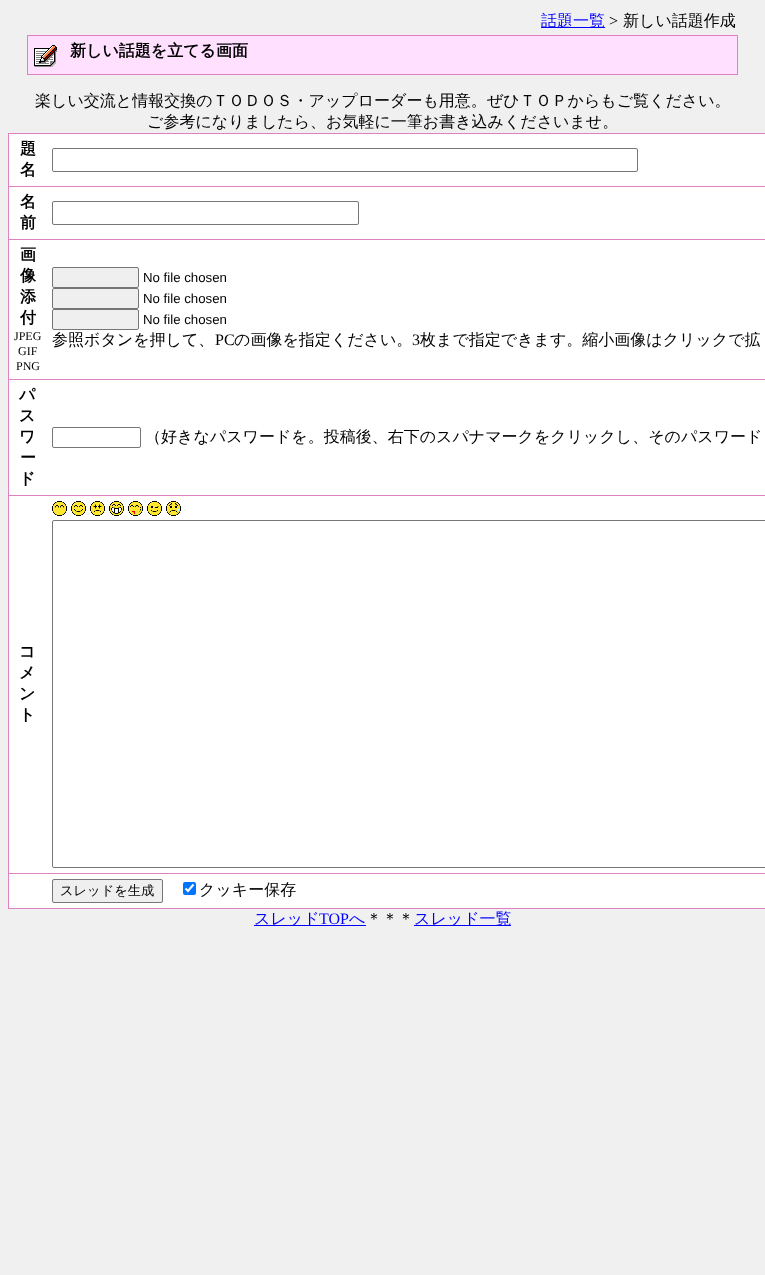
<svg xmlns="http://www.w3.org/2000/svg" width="765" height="1275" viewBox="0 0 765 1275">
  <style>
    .t1 { font: 500 16px WenQuanYi Zen Hei; fill: #00f; }
    .t2 { font: 16px Liberation Serif; fill: #000; }
    .t3 { font: 500 16px WenQuanYi Zen Hei; fill: #000; }
    .t4 { font: bold 16px WenQuanYi Zen Hei; fill: #000; }
    .t5 { font: 12px Liberation Serif; fill: #000; }
    .t6 { font: 13.25px Liberation Sans; fill: #000; }
    .t7 { font: 500 13.25px WenQuanYi Zen Hei; fill: #000; }
    .t8 { font: 16px Liberation Serif; fill: #00f; }
  </style>
  <rect width="100%" height="100%" fill="#f0f0f0"/>
  <rect x="541" y="27" width="64" height="1" fill="#00f"/>
  <text x="541" y="26" class="t1">話題一覧</text>
  <text x="609" y="26" class="t2">&gt;</text>
  <text x="623" y="26" class="t3">新しい話題作成</text>
  <rect x="27" y="35" width="711" height="40" fill="#e080c0"/>
  <rect x="28" y="36" width="709" height="38" fill="#ffe0ff"/>
  <image x="34" y="45" width="23" height="22" href="images/1.png"/>
  <text x="70" y="56" class="t4">新しい話題を立てる画面</text>
  <text x="35" y="106" class="t3">楽しい交流と情報交換のＴＯＤＯＳ・アップローダーも用意。ぜひＴＯＰからもご覧ください。</text>
  <text x="147" y="127" class="t3">ご参考になりましたら、お気軽に一筆お書き込みくださいませ。</text>
  <rect x="8" y="133" width="757" height="776" fill="#e080c0"/>
  <rect x="9" y="134" width="756" height="52" fill="#fff"/>
  <text x="20" y="154" class="t4">題</text>
  <text x="20" y="175" class="t4">名</text>
  <rect x="52.5" y="148.5" width="585" height="23" rx="1.5" fill="none" stroke="#767676"/>
  <rect x="9" y="187" width="756" height="52" fill="#fff"/>
  <text x="20" y="207" class="t4">名</text>
  <text x="20" y="228" class="t4">前</text>
  <rect x="52.5" y="201.5" width="306" height="23" rx="1.5" fill="none" stroke="#767676"/>
  <rect x="9" y="240" width="756" height="139" fill="#fff"/>
  <text x="20" y="260" class="t4">画</text>
  <text x="20" y="281" class="t4">像</text>
  <text x="20" y="302" class="t4">添</text>
  <text x="20" y="323" class="t4">付</text>
  <text x="14" y="340" class="t5">JPEG</text>
  <text x="18" y="355" class="t5">GIF</text>
  <text x="16" y="370" class="t5">PNG</text>
  <rect x="52.5" y="267.5" width="86" height="20" rx="1.5" fill="#efefef" stroke="#767676"/>
  <text x="143" y="282" class="t6">No file chosen</text>
  <rect x="52.5" y="288.5" width="86" height="20" rx="1.5" fill="#efefef" stroke="#767676"/>
  <text x="143" y="303" class="t6">No file chosen</text>
  <rect x="52.5" y="309.5" width="86" height="20" rx="1.5" fill="#efefef" stroke="#767676"/>
  <text x="143" y="324" class="t6">No file chosen</text>
  <text x="52" y="345" class="t3">参照ボタンを押して、</text>
  <text x="215" y="345" class="t2">PC</text>
  <text x="234" y="345" class="t3">の画像を指定ください。</text>
  <text x="412" y="345" class="t2">3</text>
  <text x="420" y="345" class="t3">枚まで指定できます。縮小画像はクリックで拡</text>
  <rect x="9" y="380" width="756" height="115" fill="#fff"/>
  <text x="19" y="400" class="t4">パ</text>
  <text x="19" y="421" class="t4">ス</text>
  <text x="19" y="442" class="t4">ワ</text>
  <text x="20" y="463" class="t4">ー</text>
  <text x="19" y="484" class="t4">ド</text>
  <rect x="52.5" y="427.5" width="88" height="20" rx="1.5" fill="none" stroke="#767676"/>
  <text x="145" y="442" class="t3">（好きなパスワードを。投稿後、右下のスパナマークをクリックし、そのパスワード</text>
  <rect x="9" y="496" width="756" height="377" fill="#fff"/>
  <text x="19" y="657" class="t4">コ</text>
  <text x="19" y="678" class="t4">メ</text>
  <text x="19" y="699" class="t4">ン</text>
  <text x="19" y="720" class="t4">ト</text>
  <image x="52" y="501" width="15" height="15" href="images/2.png"/>
  <image x="71" y="501" width="15" height="15" href="images/3.png"/>
  <image x="90" y="501" width="15" height="15" href="images/4.png"/>
  <image x="109" y="501" width="15" height="15" href="images/5.png"/>
  <image x="128" y="501" width="15" height="15" href="images/6.png"/>
  <image x="147" y="501" width="15" height="15" href="images/7.png"/>
  <image x="166" y="501" width="15" height="15" href="images/8.png"/>
  <rect x="52.5" y="520.5" width="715" height="347" rx="1.5" fill="none" stroke="#767676"/>
  <rect x="9" y="874" width="756" height="34" fill="#fff"/>
  <rect x="52.5" y="879.5" width="110" height="23" rx="1.5" fill="#efefef" stroke="#767676"/>
  <text x="60" y="895" class="t7">スレッドを生成</text>
  <rect x="183" y="882" width="13" height="13" rx="2" fill="#0075ff"/>
  <path d="M185.5 888.5L188 891L193.5 884.5" fill="none" stroke="#fff" stroke-width="2.1"/>
  <text x="199" y="895" class="t3">クッキー保存</text>
  <rect x="254" y="925" width="112" height="1" fill="#00f"/>
  <text x="254" y="924" class="t1">スレッド</text>
  <text x="319" y="924" class="t8">TOP</text>
  <text x="349" y="924" class="t1">へ</text>
  <text x="366" y="924" class="t3">＊＊＊</text>
  <rect x="414" y="925" width="97" height="1" fill="#00f"/>
  <text x="414" y="924" class="t1">スレッド一覧</text>
</svg>
